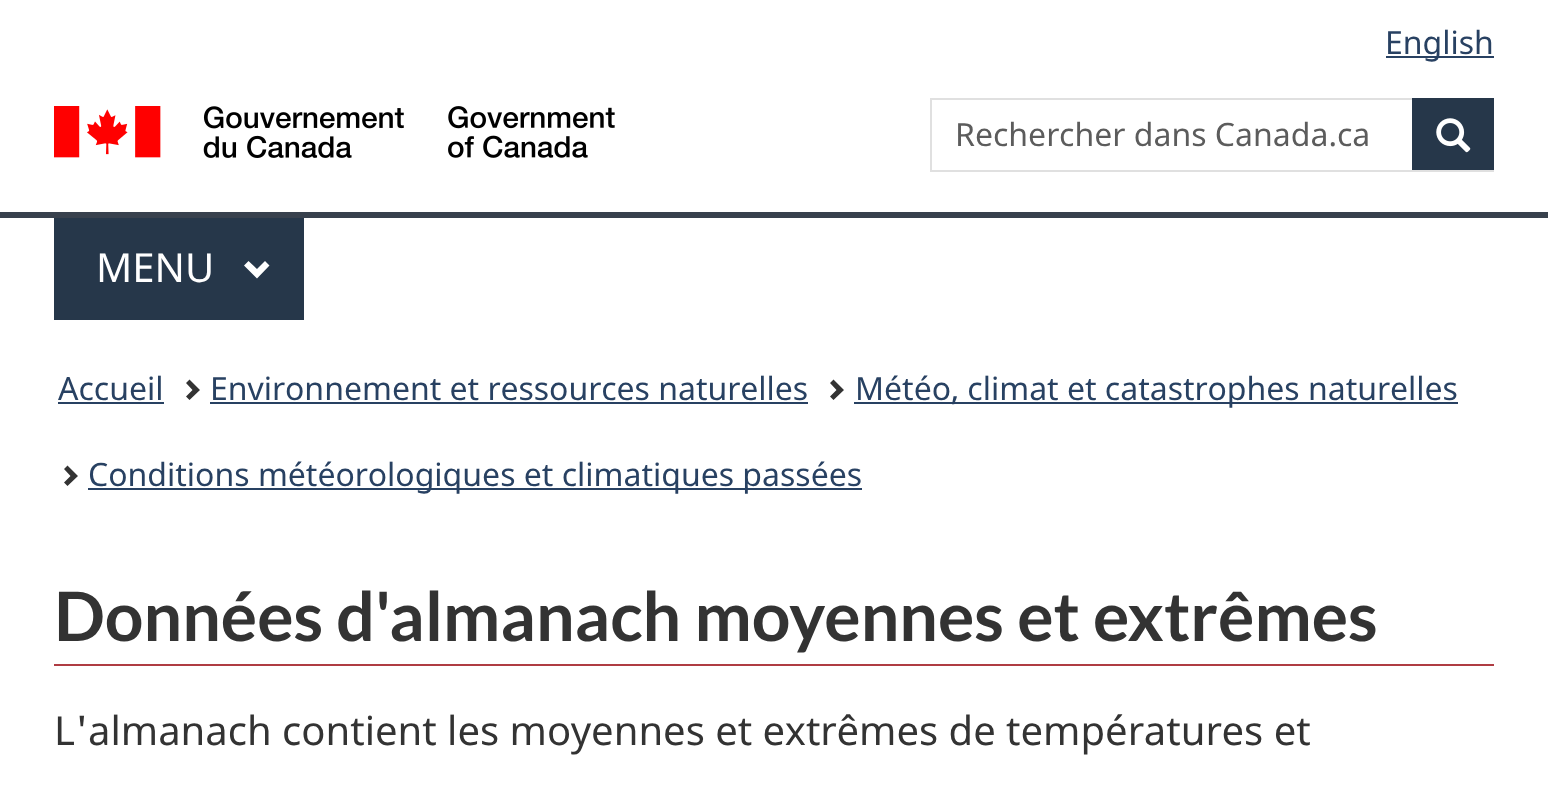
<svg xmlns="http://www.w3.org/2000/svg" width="1548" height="794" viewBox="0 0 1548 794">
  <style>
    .t1 { font: 32px Noto Sans; fill: #284162; }
    .t2 { font: 32px Noto Sans; fill: #5c5c5c; }
    .t3 { font: 40px Noto Sans; fill: #fff; }
    .t4 { font: bold 68px Lato; fill: #333; }
    .t5 { font: 40px Noto Sans; fill: #333; }
  </style>
  <rect width="100%" height="100%" fill="#fff"/>
  <rect x="1386" y="56" width="108" height="2" fill="#284162"/>
  <text x="1385" y="54" class="t1">English</text>
  <image x="54" y="106" width="561" height="52" href="images/1.png"/>
  <rect x="931" y="99" width="562" height="72" fill="none" stroke="#e0e0e0" stroke-width="2"/>
  <text x="955" y="146" class="t2">Rechercher dans Canada.ca</text>
  <rect x="1412" y="98" width="82" height="72" fill="#26374a"/>
  <image x="1436" y="118" width="35" height="35" href="images/2.png"/>
  <rect x="0" y="212" width="1548" height="6" fill="#38414d"/>
  <rect x="54" y="218" width="250" height="102" fill="#26374a"/>
  <text x="96" y="282" class="t3">MENU</text>
  <path d="M269.5 265.5L257 278.5L244 265.5L248.5 261L257 269L265 261Z" fill="#fff"/>
  <text x="58" y="400" class="t1">Accueil</text>
  <rect x="58" y="402" width="106" height="2" fill="#284162"/>
  <path d="M200 390L189.5 400L186 396.5L192.5 390L186 383L189.5 379.5Z" fill="#333"/>
  <text x="210" y="400" class="t1">Environnement et ressources naturelles</text>
  <rect x="210" y="402" width="598" height="2" fill="#284162"/>
  <path d="M844 390L833.5 400L830 396.5L836.5 390L830 383L833.5 379.5Z" fill="#333"/>
  <rect x="854" y="402" width="604" height="2" fill="#284162"/>
  <text x="855" y="400" class="t1">Météo, climat et catastrophes naturelles</text>
  <path d="M78 476L67.5 486L64 482.5L70.5 476L64 469L67.5 465.5Z" fill="#333"/>
  <rect x="88" y="488" width="774" height="2" fill="#284162"/>
  <text x="88" y="486" class="t1">Conditions météorologiques et climatiques passées</text>
  <rect x="54" y="664" width="1440" height="2" fill="#af3c43"/>
  <text x="54" y="641" class="t4">Données d'almanach moyennes et extrêmes</text>
  <text x="54" y="745" class="t5">L'almanach contient les moyennes et extrêmes de températures et</text>
</svg>
